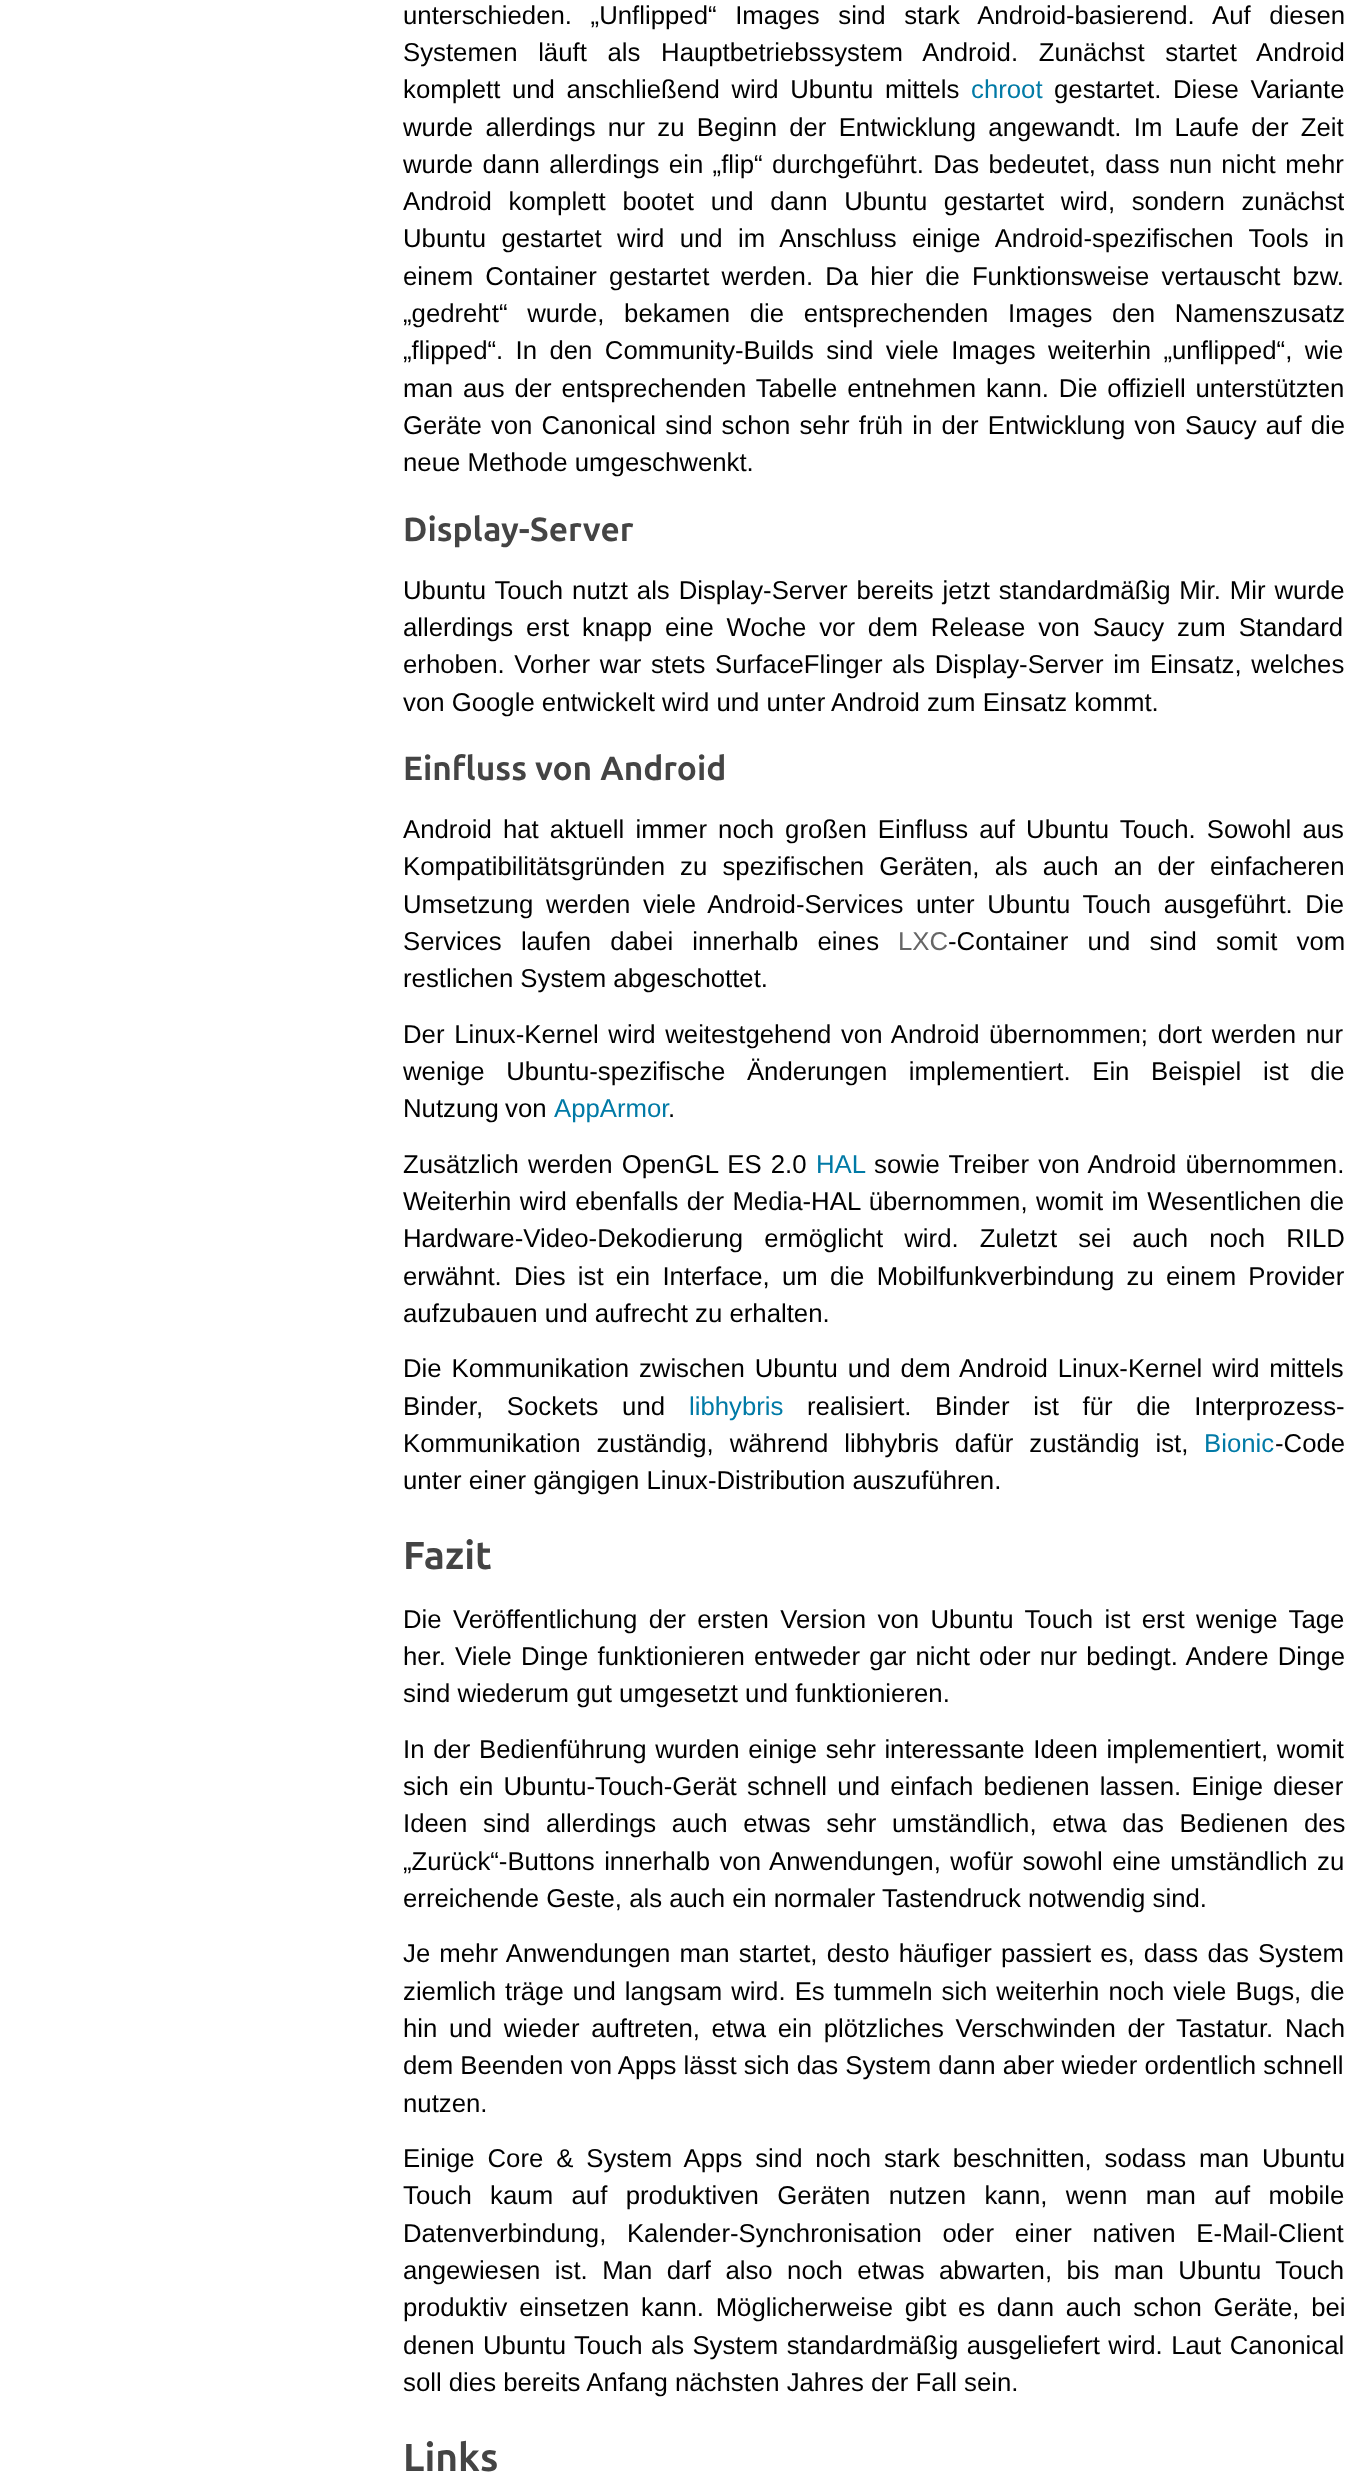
<svg xmlns="http://www.w3.org/2000/svg" width="1361" height="2480" viewBox="0 0 1361 2480">
  <style>
    .t1 { font: 25.75px Liberation Sans; fill: #000; }
    .t2 { font: 25.75px Liberation Sans; fill: #007aa6; }
    .t3 { font: bold 33.5px Ubuntu; fill: #444; }
    .t4 { font: 25.75px Liberation Sans; fill: #666; }
    .t5 { font: bold 39px Ubuntu; fill: #444; }
  </style>
  <defs>
    <clipPath id="clip1"><rect x="403" y="0" width="941" height="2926"/></clipPath>
  </defs>
  <rect width="100%" height="100%" fill="#fff"/>
  <text x="403" y="24" word-spacing="11.5" class="t1">unterschieden. „Unflipped“ Images sind stark Android-basierend. Auf diesen</text>
  <text x="403" y="61" word-spacing="13.5" class="t1">Systemen läuft als Hauptbetriebssystem Android. Zunächst startet Android</text>
  <text x="403" y="98" word-spacing="4.5" class="t1">komplett und anschließend wird Ubuntu mittels</text>
  <text x="971" y="98" class="t2">chroot</text>
  <text x="1054" y="98" word-spacing="4.5" class="t1">gestartet. Diese Variante</text>
  <g clip-path="url(#clip1)">
    <text x="403" y="136" word-spacing="5.1" class="t1">wurde allerdings nur zu Beginn der Entwicklung angewandt. Im Laufe der Zeit</text>
    <text x="403" y="173" word-spacing="2.25" class="t1">wurde dann allerdings ein „flip“ durchgeführt. Das bedeutet, dass nun nicht mehr</text>
    <text x="403" y="210" word-spacing="9.5" class="t1">Android komplett bootet und dann Ubuntu gestartet wird, sondern zunächst</text>
  </g>
  <text x="403" y="247" word-spacing="8.25" class="t1">Ubuntu gestartet wird und im Anschluss einige Android-spezifischen Tools in</text>
  <text x="403" y="285" word-spacing="5" class="t1">einem Container gestartet werden. Da hier die Funktionsweise vertauscht bzw.</text>
  <text x="403" y="322" word-spacing="12.5" class="t1">„gedreht“ wurde, bekamen die entsprechenden Images den Namenszusatz</text>
  <text x="403" y="359" word-spacing="5.25" class="t1">„flipped“. In den Community-Builds sind viele Images weiterhin „unflipped“, wie</text>
  <text x="403" y="397" word-spacing="2.75" class="t1">man aus der entsprechenden Tabelle entnehmen kann. Die offiziell unterstützten</text>
  <text x="403" y="434" word-spacing="2" class="t1">Geräte von Canonical sind schon sehr früh in der Entwicklung von Saucy auf die</text>
  <text x="403" y="471" class="t1">neue Methode umgeschwenkt.</text>
  <text x="403" y="541" class="t3">Display-Server</text>
  <text x="403" y="599" word-spacing="1.75" class="t1">Ubuntu Touch nutzt als Display-Server bereits jetzt standardmäßig Mir. Mir wurde</text>
  <text x="403" y="636" word-spacing="5.75" class="t1">allerdings erst knapp eine Woche vor dem Release von Saucy zum Standard</text>
  <text x="403" y="673" word-spacing="2.5" class="t1">erhoben. Vorher war stets SurfaceFlinger als Display-Server im Einsatz, welches</text>
  <text x="403" y="711" class="t1">von Google entwickelt wird und unter Android zum Einsatz kommt.</text>
  <text x="403" y="780" class="t3">Einfluss von Android</text>
  <text x="403" y="838" word-spacing="4" class="t1">Android hat aktuell immer noch großen Einfluss auf Ubuntu Touch. Sowohl aus</text>
  <text x="403" y="875" word-spacing="8" class="t1">Kompatibilitätsgründen zu spezifischen Geräten, als auch an der einfacheren</text>
  <text x="403" y="913" word-spacing="5.5" class="t1">Umsetzung werden viele Android-Services unter Ubuntu Touch ausgeführt. Die</text>
  <text x="403" y="950" word-spacing="12" class="t1">Services laufen dabei innerhalb eines</text>
  <text x="898" y="950" class="t4">LXC</text>
  <text x="948" y="950" word-spacing="12" class="t1">-Container und sind somit vom</text>
  <text x="403" y="987" class="t1">restlichen System abgeschottet.</text>
  <g clip-path="url(#clip1)">
    <text x="403" y="1043" word-spacing="2.5" class="t1">Der Linux-Kernel wird weitestgehend von Android übernommen; dort werden nur</text>
  </g>
  <text x="403" y="1080" word-spacing="14.5" class="t1">wenige Ubuntu-spezifische Änderungen implementiert. Ein Beispiel ist die</text>
  <text x="403" y="1117" word-spacing="-1" class="t1">Nutzung von</text>
  <text x="554" y="1117" class="t2">AppArmor</text>
  <text x="668" y="1117" class="t1">.</text>
  <text x="403" y="1173" word-spacing="2" class="t1">Zusätzlich werden OpenGL ES 2.0</text>
  <text x="816" y="1173" class="t2">HAL</text>
  <text x="874" y="1173" word-spacing="2" class="t1">sowie Treiber von Android übernommen.</text>
  <text x="403" y="1210" word-spacing="1.25" class="t1">Weiterhin wird ebenfalls der Media-HAL übernommen, womit im Wesentlichen die</text>
  <text x="403" y="1247" word-spacing="14" class="t1">Hardware-Video-Dekodierung ermöglicht wird. Zuletzt sei auch noch RILD</text>
  <g clip-path="url(#clip1)">
    <text x="403" y="1285" word-spacing="5.1" class="t1">erwähnt. Dies ist ein Interface, um die Mobilfunkverbindung zu einem Provider</text>
  </g>
  <text x="403" y="1322" class="t1">aufzubauen und aufrecht zu erhalten.</text>
  <text x="403" y="1377" word-spacing="2.75" class="t1">Die Kommunikation zwischen Ubuntu und dem Android Linux-Kernel wird mittels</text>
  <text x="403" y="1415" word-spacing="16.5" class="t1">Binder, Sockets und</text>
  <text x="689" y="1415" class="t2">libhybris</text>
  <text x="807" y="1415" word-spacing="16.5" class="t1">realisiert. Binder ist für die Interprozess-</text>
  <text x="403" y="1452" word-spacing="8.75" class="t1">Kommunikation zuständig, während libhybris dafür zuständig ist,</text>
  <text x="1204" y="1452" class="t2">Bionic</text>
  <text x="1275" y="1452" class="t1">-Code</text>
  <text x="403" y="1489" class="t1">unter einer gängigen Linux-Distribution auszuführen.</text>
  <text x="403" y="1569" class="t5">Fazit</text>
  <text x="403" y="1628" word-spacing="4.25" class="t1">Die Veröffentlichung der ersten Version von Ubuntu Touch ist erst wenige Tage</text>
  <text x="403" y="1665" word-spacing="2" class="t1">her. Viele Dinge funktionieren entweder gar nicht oder nur bedingt. Andere Dinge</text>
  <text x="403" y="1702" class="t1">sind wiederum gut umgesetzt und funktionieren.</text>
  <g clip-path="url(#clip1)">
    <text x="403" y="1758" word-spacing="1.5" class="t1">In der Bedienführung wurden einige sehr interessante Ideen implementiert, womit</text>
    <text x="403" y="1795" word-spacing="3" class="t1">sich ein Ubuntu-Touch-Gerät schnell und einfach bedienen lassen. Einige dieser</text>
  </g>
  <text x="403" y="1832" word-spacing="8.5" class="t1">Ideen sind allerdings auch etwas sehr umständlich, etwa das Bedienen des</text>
  <text x="403" y="1870" word-spacing="2.25" class="t1">„Zurück“-Buttons innerhalb von Anwendungen, wofür sowohl eine umständlich zu</text>
  <text x="403" y="1907" class="t1">erreichende Geste, als auch ein normaler Tastendruck notwendig sind.</text>
  <text x="403" y="1962" word-spacing="2" class="t1">Je mehr Anwendungen man startet, desto häufiger passiert es, dass das System</text>
  <text x="403" y="2000" word-spacing="1.9" class="t1">ziemlich träge und langsam wird. Es tummeln sich weiterhin noch viele Bugs, die</text>
  <text x="403" y="2037" word-spacing="4.5" class="t1">hin und wieder auftreten, etwa ein plötzliches Verschwinden der Tastatur. Nach</text>
  <text x="403" y="2074" class="t1">dem Beenden von Apps lässt sich das System dann aber wieder ordentlich schnell</text>
  <text x="403" y="2112" class="t1">nutzen.</text>
  <text x="403" y="2167" word-spacing="5.75" class="t1">Einige Core &amp; System Apps sind noch stark beschnitten, sodass man Ubuntu</text>
  <text x="403" y="2204" word-spacing="11.25" class="t1">Touch kaum auf produktiven Geräten nutzen kann, wenn man auf mobile</text>
  <g clip-path="url(#clip1)">
    <text x="403" y="2242" word-spacing="13.5" class="t1">Datenverbindung, Kalender-Synchronisation oder einer nativen E-Mail-Client</text>
  </g>
  <text x="403" y="2279" word-spacing="7.25" class="t1">angewiesen ist. Man darf also noch etwas abwarten, bis man Ubuntu Touch</text>
  <text x="403" y="2316" word-spacing="4.5" class="t1">produktiv einsetzen kann. Möglicherweise gibt es dann auch schon Geräte, bei</text>
  <text x="403" y="2354" word-spacing="1.25" class="t1">denen Ubuntu Touch als System standardmäßig ausgeliefert wird. Laut Canonical</text>
  <text x="403" y="2391" class="t1">soll dies bereits Anfang nächsten Jahres der Fall sein.</text>
  <text x="403" y="2471" class="t5">Links</text>
</svg>
